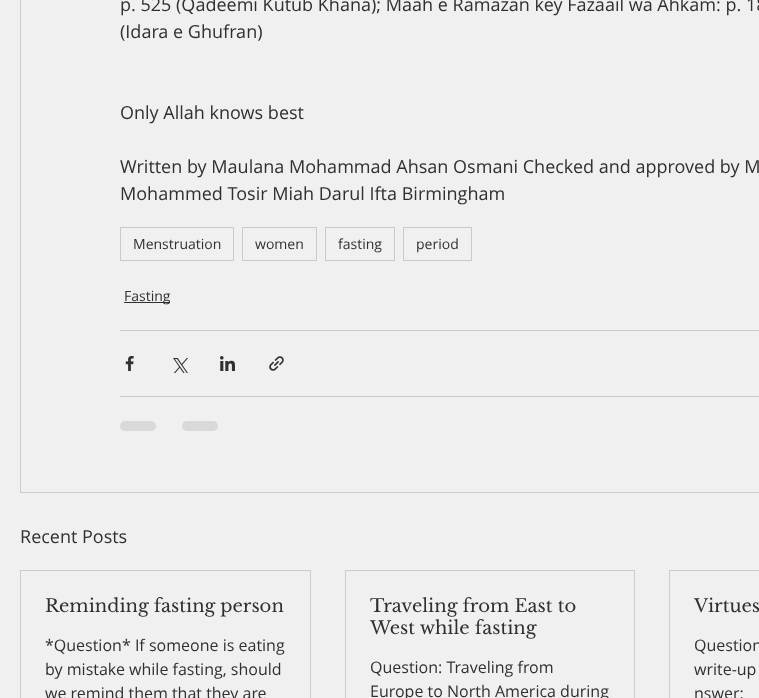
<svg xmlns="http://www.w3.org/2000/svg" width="759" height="698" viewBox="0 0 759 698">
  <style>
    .t1 { font: 18px Open Sans; fill: #303030; }
    .t2 { font: 14px Open Sans; fill: #303030; }
    .t3 { font: 18px Libre Baskerville; fill: #303030; }
    .t4 { font: 16px Open Sans; fill: #303030; }
  </style>
  <rect width="100%" height="100%" fill="#f0f0f0"/>
  <rect x="20.5" y="-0.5" width="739" height="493" fill="none" stroke="#ccc"/>
  <text x="120" y="11" class="t1">p. 525 (Qadeemi Kutub Khana); Maah e Ramazan key Fazaail wa Ahkam: p. 18</text>
  <text x="120" y="38" class="t1">(Idara e Ghufran)</text>
  <text x="120" y="119" class="t1">Only Allah knows best</text>
  <text x="120" y="173" class="t1">Written by Maulana Mohammad Ahsan Osmani Checked and approved by M</text>
  <text x="120" y="200" class="t1">Mohammed Tosir Miah Darul Ifta Birmingham</text>
  <rect x="120.5" y="227.5" width="113" height="33" fill="none" stroke="#cacaca"/>
  <text x="133" y="249" class="t2">Menstruation</text>
  <rect x="242.5" y="227.5" width="74" height="33" fill="none" stroke="#cacaca"/>
  <text x="255" y="249" class="t2">women</text>
  <rect x="325.5" y="227.5" width="69" height="33" fill="none" stroke="#cacaca"/>
  <text x="338" y="249" class="t2">fasting</text>
  <rect x="403.5" y="227.5" width="68" height="33" fill="none" stroke="#cacaca"/>
  <text x="416" y="249" class="t2">period</text>
  <rect x="124" y="302" width="46" height="1" fill="#303030"/>
  <text x="124" y="301" class="t2">Fasting</text>
  <rect x="120" y="330" width="639" height="1" fill="#cacaca"/>
  <image x="125" y="356" width="9" height="15" href="images/1.png"/>
  <image x="173" y="358" width="15" height="15" href="images/2.png"/>
  <image x="220" y="356" width="15" height="15" href="images/3.png"/>
  <image x="269" y="356" width="15" height="15" href="images/4.png"/>
  <rect x="120" y="396" width="639" height="1" fill="#cacaca"/>
  <rect x="120" y="421" width="36" height="10" rx="5" fill="#d9d9d9"/>
  <rect x="182" y="421" width="36" height="10" rx="5" fill="#d9d9d9"/>
  <text x="20" y="543" class="t1">Recent Posts</text>
  <rect x="20.5" y="570.5" width="290" height="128" fill="none" stroke="#ccc"/>
  <text x="45" y="612" class="t3">Reminding fasting person</text>
  <text x="45" y="651" class="t4">*Question* If someone is eating</text>
  <text x="45" y="675" class="t4">by mistake while fasting, should</text>
  <text x="45" y="699" class="t4">we remind them that they are</text>
  <rect x="345.5" y="570.5" width="289" height="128" fill="none" stroke="#ccc"/>
  <text x="370" y="612" class="t3">Traveling from East to</text>
  <text x="370" y="634" class="t3">West while fasting</text>
  <text x="370" y="673" class="t4">Question: Traveling from</text>
  <text x="370" y="697" class="t4">Europe to North America during</text>
  <rect x="669.5" y="570.5" width="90" height="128" fill="none" stroke="#ccc"/>
  <text x="694" y="612" class="t3">Virtues</text>
  <text x="694" y="651" class="t4">Question</text>
  <text x="694" y="675" class="t4">write-up</text>
  <text x="694" y="699" class="t4">nswer:</text>
</svg>
